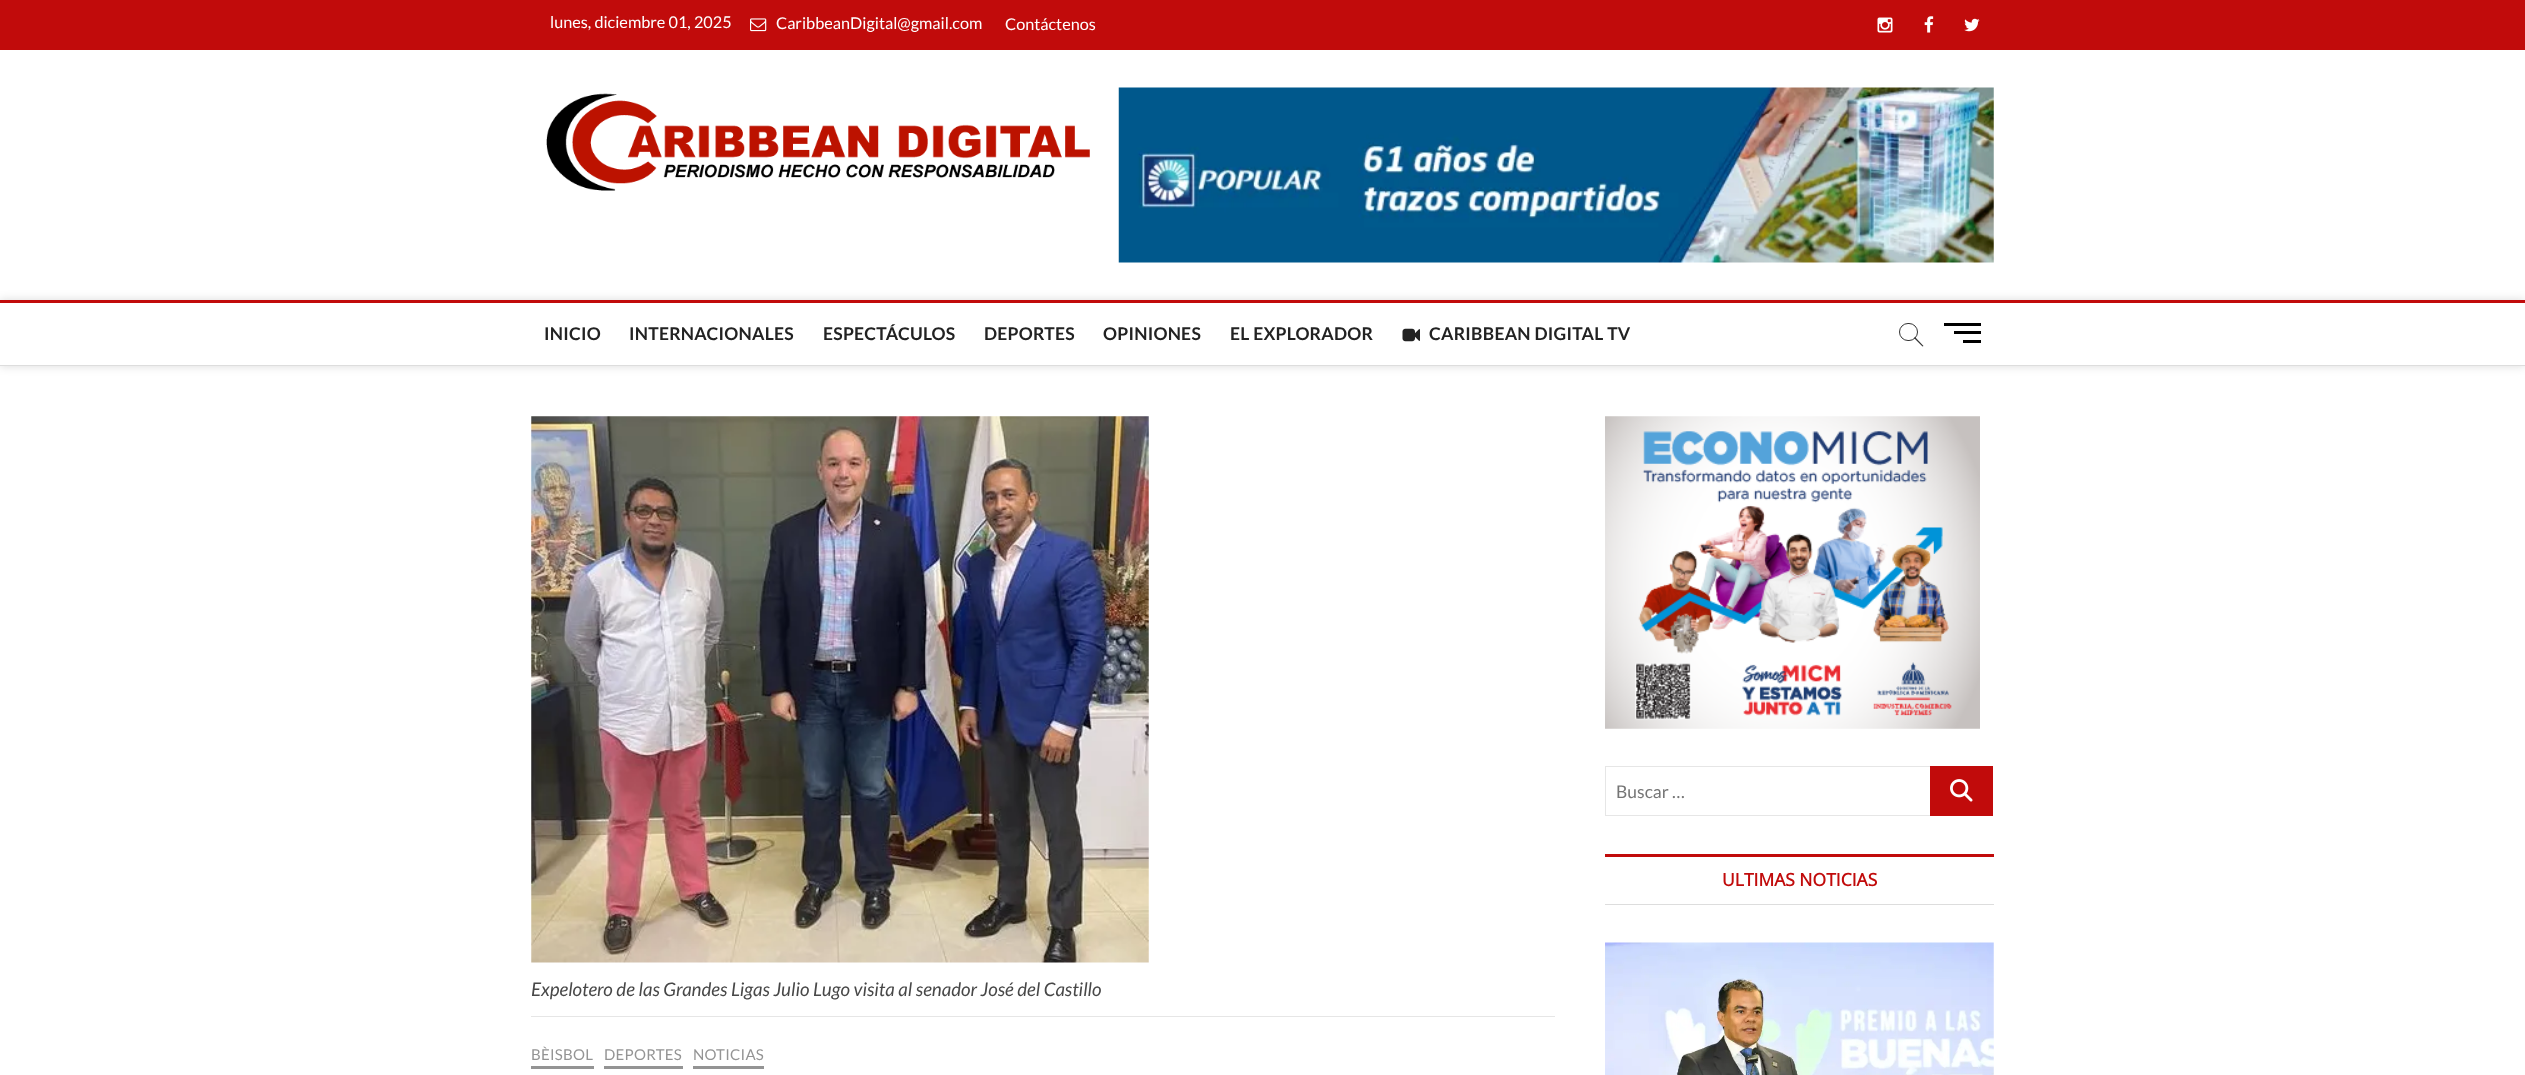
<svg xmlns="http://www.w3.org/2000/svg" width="2525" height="1075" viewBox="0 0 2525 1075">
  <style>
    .t1 { font: 16.25px Lato; fill: #fff; }
    .t2 { font: bold 17.5px Lato; letter-spacing: 0.25px; fill: #222; }
    .t3 { font: 17.5px Lato; fill: #757575; }
    .t4 { font: bold 17.5px Open Sans; fill: #c10b0b; }
    .t5 { font: italic 18.75px Lato; fill: #484848; }
    .t6 { font: 15px Lato; letter-spacing: 0.25px; fill: #949494; }
  </style>
  <defs>
    <clipPath id="clip1"><path d="M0 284H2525V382H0ZM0 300H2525V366H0Z" clip-rule="evenodd"/></clipPath>
  </defs>
  <rect width="100%" height="100%" fill="#fff"/>
  <rect x="0" y="0" width="2525" height="50" fill="#c10b0b"/>
  <text x="550" y="28" class="t1">lunes, diciembre 01, 2025</text>
  <image x="750" y="18" width="17" height="14" href="images/1.png"/>
  <text x="776" y="29" class="t1">CaribbeanDigital@gmail.com</text>
  <text x="1005" y="30" class="t1">Contáctenos</text>
  <image x="1877" y="17" width="16" height="16" href="images/2.png"/>
  <image x="1924" y="16" width="10" height="17" href="images/3.png"/>
  <image x="1964" y="18" width="16" height="14" href="images/4.png"/>
  <image x="546" y="93" width="544" height="98" href="images/5.png"/>
  <image x="1118" y="87" width="876" height="176" href="images/6.png"/>
  <g clip-path="url(#clip1)">
    <rect x="0" y="300" width="2525" height="66" fill="#00000026" filter="blur(5px)"/>
  </g>
  <rect x="0" y="300" width="2525" height="3" fill="#c10b0b"/>
  <rect x="0" y="365" width="2525" height="1" fill="#ddd"/>
  <text x="544" y="340" class="t2">INICIO</text>
  <text x="629" y="340" class="t2">INTERNACIONALES</text>
  <text x="823" y="340" class="t2">ESPECTÁCULOS</text>
  <text x="984" y="340" class="t2">DEPORTES</text>
  <text x="1103" y="340" class="t2">OPINIONES</text>
  <text x="1230" y="340" class="t2">EL EXPLORADOR</text>
  <image x="1402" y="328" width="18" height="14" href="images/7.png"/>
  <text x="1429" y="340" class="t2">CARIBBEAN DIGITAL TV</text>
  <rect x="1899.5" y="323.5" width="18" height="17" rx="8.5" fill="none" stroke="#333"/>
  <path d="M1914 338L1915 337L1923.5 346L1922.5 346.5Z" fill="#333"/>
  <rect x="1954" y="331" width="27" height="3" fill="#000"/>
  <rect x="1944" y="323" width="37" height="3" fill="#000"/>
  <rect x="1963" y="340" width="18" height="3" fill="#000"/>
  <image x="1605" y="416" width="375" height="313" href="images/8.png"/>
  <rect x="1605.5" y="766.5" width="325" height="49" fill="none" stroke="#e6e6e6"/>
  <text x="1616" y="798" class="t3">Buscar …</text>
  <rect x="1930" y="766" width="63" height="50" fill="#c10b0b"/>
  <image x="1950" y="779" width="23" height="23" href="images/9.png"/>
  <rect x="1605" y="854" width="389" height="3" fill="#c10b0b"/>
  <rect x="1605" y="904" width="389" height="1" fill="#ddd"/>
  <text x="1722" y="886" class="t4">ULTIMAS NOTICIAS</text>
  <image x="1605" y="942" width="389" height="133" href="images/10.png"/>
  <image x="531" y="416" width="618" height="547" href="images/11.png"/>
  <rect x="531" y="1016" width="1024" height="1" fill="#e6e6e6"/>
  <text x="531" y="996" class="t5">Expelotero de las Grandes Ligas Julio Lugo visita al senador José del Castillo</text>
  <text x="531" y="1060" class="t6">BÈISBOL</text>
  <rect x="531" y="1066" width="63" height="3" fill="#949494"/>
  <text x="604" y="1060" class="t6">DEPORTES</text>
  <rect x="604" y="1066" width="79" height="3" fill="#949494"/>
  <text x="693" y="1060" class="t6">NOTICIAS</text>
  <rect x="693" y="1066" width="71" height="3" fill="#949494"/>
</svg>
